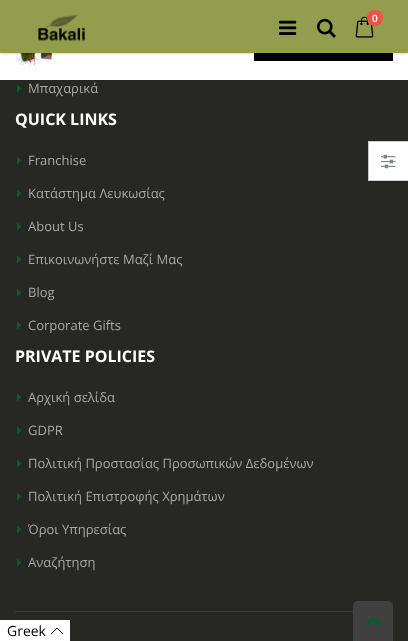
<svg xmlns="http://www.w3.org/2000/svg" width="408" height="641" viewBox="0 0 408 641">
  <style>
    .t1 { font: 600 10px Open Sans; fill: #fff; }
    .t2 { font: 13px Open Sans; fill: #a8a8a8; }
    .t3 { font: bold 16px Open Sans; fill: #fff; }
    .t4 { font: 14px Open Sans; fill: #000; }
  </style>
  <rect width="100%" height="100%" fill="#272723"/>
  <rect x="0" y="53" width="408" height="27" fill="#fff"/>
  <image x="15" y="53" width="47" height="12" href="images/5.png"/>
  <rect x="254" y="53" width="139" height="8" fill="#000"/>
  <rect x="0" y="0" width="408" height="53" fill="#0000004d" filter="blur(1.5px)"/>
  <rect x="0" y="0" width="408" height="53" fill="#949c4e"/>
  <image x="38" y="14" width="47" height="28" href="images/1.png"/>
  <image x="279" y="20" width="18" height="15" href="images/2.png"/>
  <image x="317" y="18" width="19" height="20" href="images/3.png"/>
  <image x="355" y="16" width="19" height="22" href="images/4.png"/>
  <circle cx="375" cy="18" r="8" fill="#ed5348"/>
  <text x="372" y="22" class="t1">0</text>
  <rect x="369" y="142" width="39" height="38" fill="#fff"/>
  <rect x="368" y="141" width="40" height="1" fill="#ccc"/>
  <rect x="368" y="180" width="40" height="1" fill="#ccc"/>
  <rect x="368" y="141" width="1" height="40" fill="#ccc"/>
  <image x="381" y="154" width="15" height="15" href="images/6.png"/>
  <image x="17" y="84" width="4" height="8" href="images/7.png"/>
  <text x="28" y="93" class="t2">Μπαχαρικά</text>
  <text x="15" y="125" class="t3">QUICK LINKS</text>
  <image x="17" y="156" width="4" height="8" href="images/7.png"/>
  <text x="28" y="165" class="t2">Franchise</text>
  <image x="17" y="189" width="4" height="8" href="images/7.png"/>
  <text x="28" y="198" class="t2">Κατάστημα Λευκωσίας</text>
  <image x="17" y="222" width="4" height="8" href="images/7.png"/>
  <text x="28" y="231" class="t2">About Us</text>
  <image x="17" y="255" width="4" height="8" href="images/7.png"/>
  <text x="28" y="264" class="t2">Επικοινωνήστε Μαζί Μας</text>
  <image x="17" y="288" width="4" height="8" href="images/7.png"/>
  <text x="28" y="297" class="t2">Blog</text>
  <image x="17" y="321" width="4" height="8" href="images/7.png"/>
  <text x="28" y="330" class="t2">Corporate Gifts</text>
  <text x="15" y="362" class="t3">PRIVATE POLICIES</text>
  <image x="17" y="393" width="4" height="8" href="images/7.png"/>
  <text x="28" y="402" class="t2">Αρχική σελίδα</text>
  <image x="17" y="426" width="4" height="8" href="images/7.png"/>
  <text x="28" y="435" class="t2">GDPR</text>
  <image x="17" y="459" width="4" height="8" href="images/7.png"/>
  <text x="28" y="468" class="t2">Πολιτική Προστασίας Προσωπικών Δεδομένων</text>
  <image x="17" y="492" width="4" height="8" href="images/7.png"/>
  <text x="28" y="501" class="t2">Πολιτική Επιστροφής Χρημάτων</text>
  <image x="17" y="525" width="4" height="8" href="images/7.png"/>
  <text x="28" y="534" class="t2">Όροι Υπηρεσίας</text>
  <image x="17" y="558" width="4" height="8" href="images/7.png"/>
  <text x="28" y="567" class="t2">Αναζήτηση</text>
  <rect x="15" y="611" width="338" height="1" fill="#3d3d38"/>
  <path d="M358 601H388C391 601 393 603 393 606V641H353V606C353 603 355 601 358 601Z" fill="#404040"/>
  <image x="366" y="616" width="14" height="10" href="images/8.png"/>
  <rect x="0" y="620" width="70" height="21" fill="#fff"/>
  <text x="7" y="636" class="t4">Greek</text>
  <path d="M63 634L57 628L51 634" fill="none" stroke="#000"/>
</svg>
